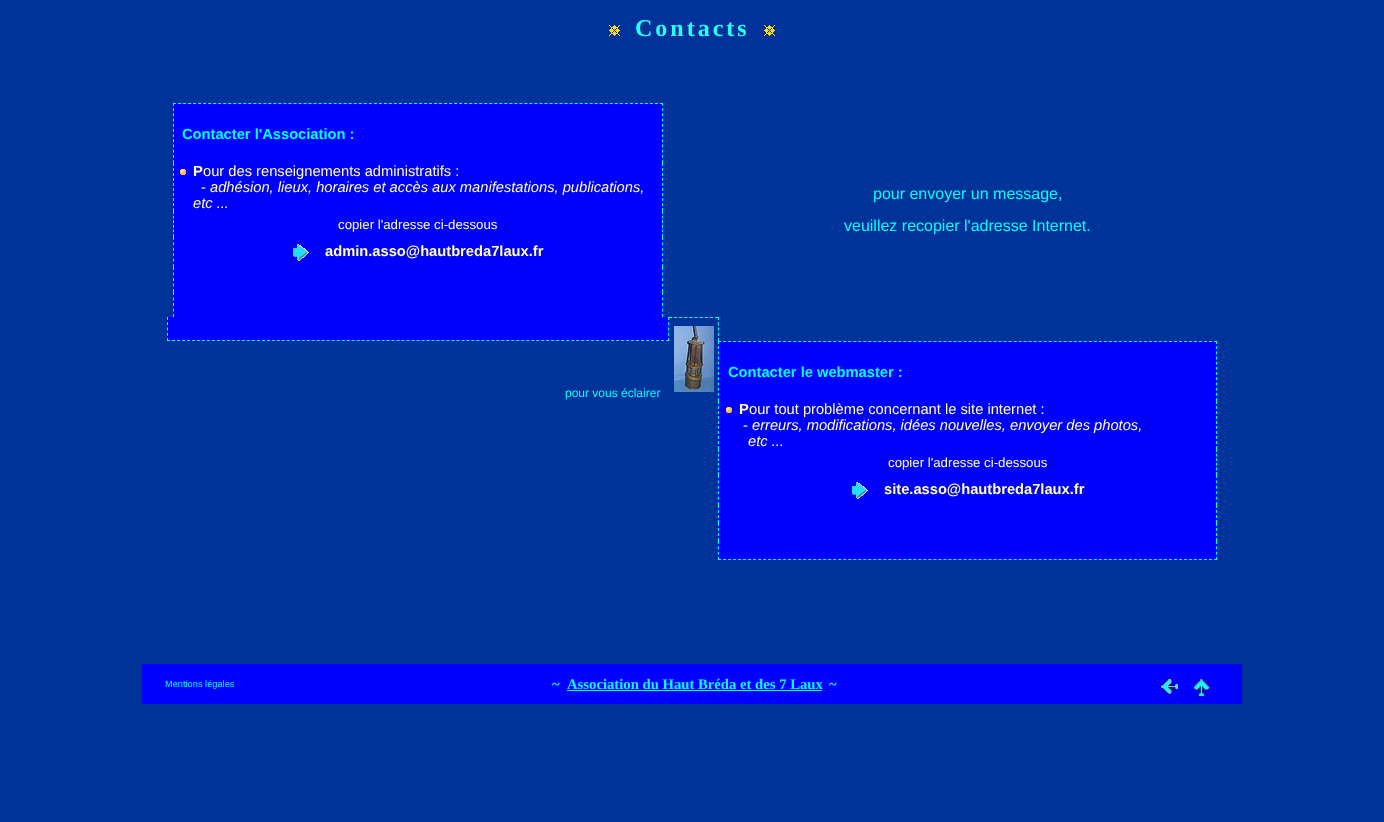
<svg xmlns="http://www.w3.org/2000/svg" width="1384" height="822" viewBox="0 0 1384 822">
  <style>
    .t1 { font: bold 24px Liberation Serif; letter-spacing: 3px; fill: #2affff; }
    .t2 { font: bold 14.7px Liberation Sans; fill: #0ff; }
    .t3 { font: bold 14.7px Liberation Sans; fill: #ffa; }
    .t4 { font: 14.7px Liberation Sans; fill: #ffa; }
    .t5 { font: italic 14.7px Liberation Sans; fill: #ffa; }
    .t6 { font: 13.25px Liberation Sans; fill: #ffa; }
    .t7 { font: 16px Liberation Sans; fill: #0ff; }
    .t8 { font: 12px Liberation Sans; fill: #0ff; }
    .t9 { font: 9.25px Liberation Sans; fill: #0ff; }
    .t10 { font: bold 14.7px Liberation Serif; fill: #0ff; }
  </style>
  <rect width="100%" height="100%" fill="#039"/>
  <image x="609" y="25" width="11" height="11" href="images/1.png"/>
  <text x="635" y="36" class="t1">Contacts</text>
  <image x="764" y="25" width="11" height="11" href="images/1.png"/>
  <rect x="173" y="103" width="490" height="60" fill="#00f"/>
  <path d="M173 103.5H663" fill="none" stroke="#0ff" stroke-dasharray="3 2.02"/>
  <path d="M662.5 103V163" fill="none" stroke="#0ff" stroke-dasharray="3 2.18"/>
  <path d="M173.5 103V163" fill="none" stroke="#0ff" stroke-dasharray="3 2.18"/>
  <text x="182" y="139" class="t2">Contacter l'Association :</text>
  <rect x="173" y="163" width="490" height="154" fill="#00f"/>
  <path d="M173.5 163V211" fill="none" stroke="#0ff" stroke-dasharray="3 2"/>
  <image x="180" y="169" width="6" height="6" href="images/2.png"/>
  <path d="M662.5 163V211" fill="none" stroke="#0ff" stroke-dasharray="3 2"/>
  <text x="193" y="176" class="t3">P</text>
  <text x="203" y="176" class="t4">our des renseignements administratifs :</text>
  <text x="201" y="192" class="t4">-</text>
  <text x="210" y="192" class="t5">adhésion, lieux, horaires et accès aux manifestations, publications,</text>
  <text x="193" y="208" class="t5">etc ...</text>
  <path d="M662.5 211V237" fill="none" stroke="#0ff" stroke-dasharray="3 1.6"/>
  <path d="M173.5 211V237" fill="none" stroke="#0ff" stroke-dasharray="3 1.6"/>
  <text x="338" y="229" class="t6">copier l'adresse ci-dessous</text>
  <path d="M662.5 237V267" fill="none" stroke="#0ff" stroke-dasharray="3 2.4"/>
  <path d="M173.5 237V267" fill="none" stroke="#0ff" stroke-dasharray="3 2.4"/>
  <image x="293" y="244" width="16" height="17" href="images/3.png"/>
  <text x="325" y="256" class="t3">admin.asso@hautbreda7laux.fr</text>
  <path d="M662.5 267V292" fill="none" stroke="#0ff" stroke-dasharray="3 2.5"/>
  <path d="M173.5 267V292" fill="none" stroke="#0ff" stroke-dasharray="3 2.5"/>
  <path d="M662.5 292V317" fill="none" stroke="#0ff" stroke-dasharray="3 2.5"/>
  <path d="M173.5 292V317" fill="none" stroke="#0ff" stroke-dasharray="3 2.5"/>
  <text x="873" y="199" class="t7">pour envoyer un message,</text>
  <text x="844" y="231" class="t7">veuillez recopier l'adresse Internet.</text>
  <rect x="167" y="317" width="502" height="24" fill="#00f"/>
  <path d="M668.5 317V341" fill="none" stroke="#0ff" stroke-dasharray="3 2.25"/>
  <path d="M167 340.5H669" fill="none" stroke="#0ff" stroke-dasharray="3 1.99"/>
  <path d="M167.5 317V341" fill="none" stroke="#0ff" stroke-dasharray="3 2.25"/>
  <path d="M669 317.5H718" fill="none" stroke="#0ff" stroke-dasharray="3 2.11"/>
  <image x="674" y="326" width="40" height="66" href="images/4.png"/>
  <path d="M718.5 317V341" fill="none" stroke="#0ff" stroke-dasharray="3 2.25"/>
  <rect x="718" y="341" width="499" height="60" fill="#00f"/>
  <path d="M718 341.5H1217" fill="none" stroke="#0ff" stroke-dasharray="3 2.01"/>
  <path d="M1216.5 341V401" fill="none" stroke="#0ff" stroke-dasharray="3 2.18"/>
  <path d="M718.5 341V401" fill="none" stroke="#0ff" stroke-dasharray="3 2.18"/>
  <text x="728" y="377" class="t2">Contacter le webmaster :</text>
  <text x="565" y="397" class="t8">pour vous éclairer</text>
  <rect x="718" y="401" width="499" height="159" fill="#00f"/>
  <path d="M718.5 401V449" fill="none" stroke="#0ff" stroke-dasharray="3 2"/>
  <image x="726" y="407" width="6" height="6" href="images/2.png"/>
  <path d="M1216.5 401V449" fill="none" stroke="#0ff" stroke-dasharray="3 2"/>
  <text x="739" y="414" class="t3">P</text>
  <text x="749" y="414" class="t4">our tout problème concernant le site internet :</text>
  <text x="743" y="430" class="t4">-</text>
  <text x="752" y="430" class="t5">erreurs, modifications, idées nouvelles, envoyer des photos,</text>
  <text x="748" y="446" class="t5">etc ...</text>
  <path d="M1216.5 449V475" fill="none" stroke="#0ff" stroke-dasharray="3 1.6"/>
  <path d="M718.5 449V475" fill="none" stroke="#0ff" stroke-dasharray="3 1.6"/>
  <text x="888" y="467" class="t6">copier l'adresse ci-dessous</text>
  <path d="M1216.5 475V505" fill="none" stroke="#0ff" stroke-dasharray="3 2.4"/>
  <path d="M718.5 475V505" fill="none" stroke="#0ff" stroke-dasharray="3 2.4"/>
  <image x="852" y="482" width="16" height="17" href="images/3.png"/>
  <text x="884" y="494" class="t3">site.asso@hautbreda7laux.fr</text>
  <path d="M1216.5 505V523" fill="none" stroke="#0ff" stroke-dasharray="3 2"/>
  <path d="M718.5 505V523" fill="none" stroke="#0ff" stroke-dasharray="3 2"/>
  <path d="M1216.5 523V541" fill="none" stroke="#0ff" stroke-dasharray="3 2"/>
  <path d="M718.5 523V541" fill="none" stroke="#0ff" stroke-dasharray="3 2"/>
  <path d="M1216.5 541V560" fill="none" stroke="#0ff" stroke-dasharray="3 2.33"/>
  <path d="M718 559.5H1217" fill="none" stroke="#0ff" stroke-dasharray="3 2.01"/>
  <path d="M718.5 541V560" fill="none" stroke="#0ff" stroke-dasharray="3 2.33"/>
  <rect x="142" y="664" width="1100" height="40" fill="#00f"/>
  <text x="165" y="687" class="t9">Mentions légales</text>
  <text x="552" y="689" class="t10">~</text>
  <text x="567" y="689" class="t10">Association du Haut Bréda et des 7 Laux</text>
  <rect x="567" y="690" width="255" height="1" fill="#0ff"/>
  <text x="829" y="689" class="t10">~</text>
  <image x="1158" y="676" width="20" height="20" href="images/5.png"/>
  <image x="1192" y="676" width="20" height="20" href="images/6.png"/>
</svg>
